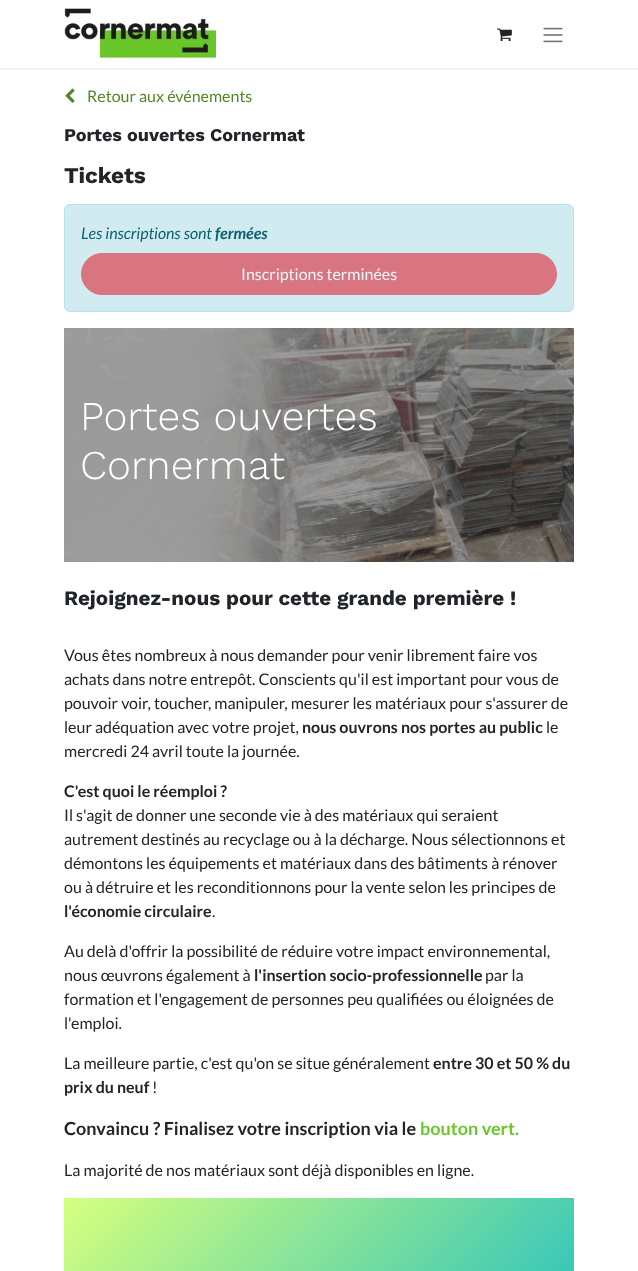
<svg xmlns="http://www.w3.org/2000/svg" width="638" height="1271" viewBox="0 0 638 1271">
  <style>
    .t1 { font: 16px Lato; fill: #558726; }
    .t2 { font: bold 18px Work Sans; fill: #212529; }
    .t3 { font: bold 22.5px Work Sans; fill: #212529; }
    .t4 { font: italic 16px Lato; fill: #0e616e; }
    .t5 { font: italic bold 16px Lato; fill: #0e616e; }
    .t6 { font: 16px Lato; fill: #eff8fa; }
    .t7 { font: 300 40.75px Work Sans; fill: #fff; }
    .t8 { font: bold 20.6px Work Sans; fill: #212529; }
    .t9 { font: 16px Lato; fill: #212529; }
    .t10 { font: bold 16px Lato; fill: #212529; }
    .t11 { font: bold 18px Lato; fill: #212529; }
    .t12 { font: bold 18px Lato; fill: #6cc72b; }
  </style>
  <defs>
    <clipPath id="clip1"><rect x="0" y="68" width="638" height="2"/></clipPath>
    <linearGradient id="g1" gradientUnits="userSpaceOnUse" x1="119" y1="1143" x2="519" y2="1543"><stop offset="0" stop-color="#d6ff7f"/><stop offset="1" stop-color="#00b3cc"/></linearGradient>
  </defs>
  <rect width="100%" height="100%" fill="#fff"/>
  <g clip-path="url(#clip1)">
    <rect x="0" y="1" width="638" height="68" fill="#0000001a" filter="blur(1.5px)"/>
  </g>
  <image x="64" y="8" width="152" height="52" href="images/1.png"/>
  <image x="497" y="28" width="15" height="14" href="images/2.png"/>
  <image x="543" y="27" width="20" height="16" href="images/3.png"/>
  <image x="65" y="88" width="10" height="15" href="images/4.png"/>
  <text x="87" y="102" class="t1">Retour aux événements</text>
  <text x="64" y="141" class="t2">Portes ouvertes Cornermat</text>
  <text x="64" y="183" class="t3">Tickets</text>
  <rect x="64.5" y="204.5" width="509" height="107" rx="5.5" fill="#d1ecf1" stroke="#b9e3ea"/>
  <text x="81" y="239" class="t4">Les inscriptions sont</text>
  <text x="215" y="239" class="t5">fermées</text>
  <rect x="81.5" y="253.5" width="475" height="41" rx="20.5" fill="#d87581" stroke="#d87581"/>
  <text x="241" y="280" class="t6">Inscriptions terminées</text>
  <image x="64" y="328" width="510" height="234" href="images/5.png"/>
  <text x="80" y="430" class="t7">Portes ouvertes</text>
  <text x="80" y="479" class="t7">Cornermat</text>
  <text x="64" y="605" class="t8">Rejoignez-nous pour cette grande première !</text>
  <text x="64" y="661" class="t9">Vous êtes nombreux à nous demander pour venir librement faire vos</text>
  <text x="64" y="685" class="t9">achats dans notre entrepôt. Conscients qu'il est important pour vous de</text>
  <text x="64" y="709" class="t9">pouvoir voir, toucher, manipuler, mesurer les matériaux pour s'assurer de</text>
  <text x="64" y="733" class="t9">leur adéquation avec votre projet,</text>
  <text x="302" y="733" class="t10">nous ouvrons nos portes au public</text>
  <text x="546" y="733" class="t9">le</text>
  <text x="64" y="757" class="t9">mercredi 24 avril toute la journée.</text>
  <text x="64" y="797" class="t10">C'est quoi le réemploi ?</text>
  <text x="64" y="821" class="t9">Il s'agit de donner une seconde vie à des matériaux qui seraient</text>
  <text x="64" y="845" class="t9">autrement destinés au recyclage ou à la décharge. Nous sélectionnons et</text>
  <text x="64" y="869" class="t9">démontons les équipements et matériaux dans des bâtiments à rénover</text>
  <text x="64" y="893" class="t9">ou à détruire et les reconditionnons pour la vente selon les principes de</text>
  <text x="64" y="917" class="t10">l'économie circulaire</text>
  <text x="212" y="917" class="t9">.</text>
  <text x="64" y="957" class="t9">Au delà d'offrir la possibilité de réduire votre impact environnemental,</text>
  <text x="64" y="981" class="t9">nous œuvrons également à</text>
  <text x="254" y="981" class="t10">l'insertion socio-professionnelle</text>
  <text x="485" y="981" class="t9">par la</text>
  <text x="64" y="1005" class="t9">formation et l'engagement de personnes peu qualifiées ou éloignées de</text>
  <text x="64" y="1029" class="t9">l'emploi.</text>
  <text x="64" y="1069" class="t9">La meilleure partie, c'est qu'on se situe généralement</text>
  <text x="433" y="1069" class="t10">entre 30 et 50 % du</text>
  <text x="64" y="1093" class="t10">prix du neuf</text>
  <text x="152" y="1093" class="t9">!</text>
  <text x="64" y="1135" class="t11">Convaincu ? Finalisez votre inscription via le</text>
  <text x="420" y="1135" class="t12">bouton vert.</text>
  <text x="64" y="1176" class="t9">La majorité de nos matériaux sont déjà disponibles en ligne.</text>
  <rect x="64" y="1198" width="510" height="73" fill="url(#g1)"/>
</svg>
